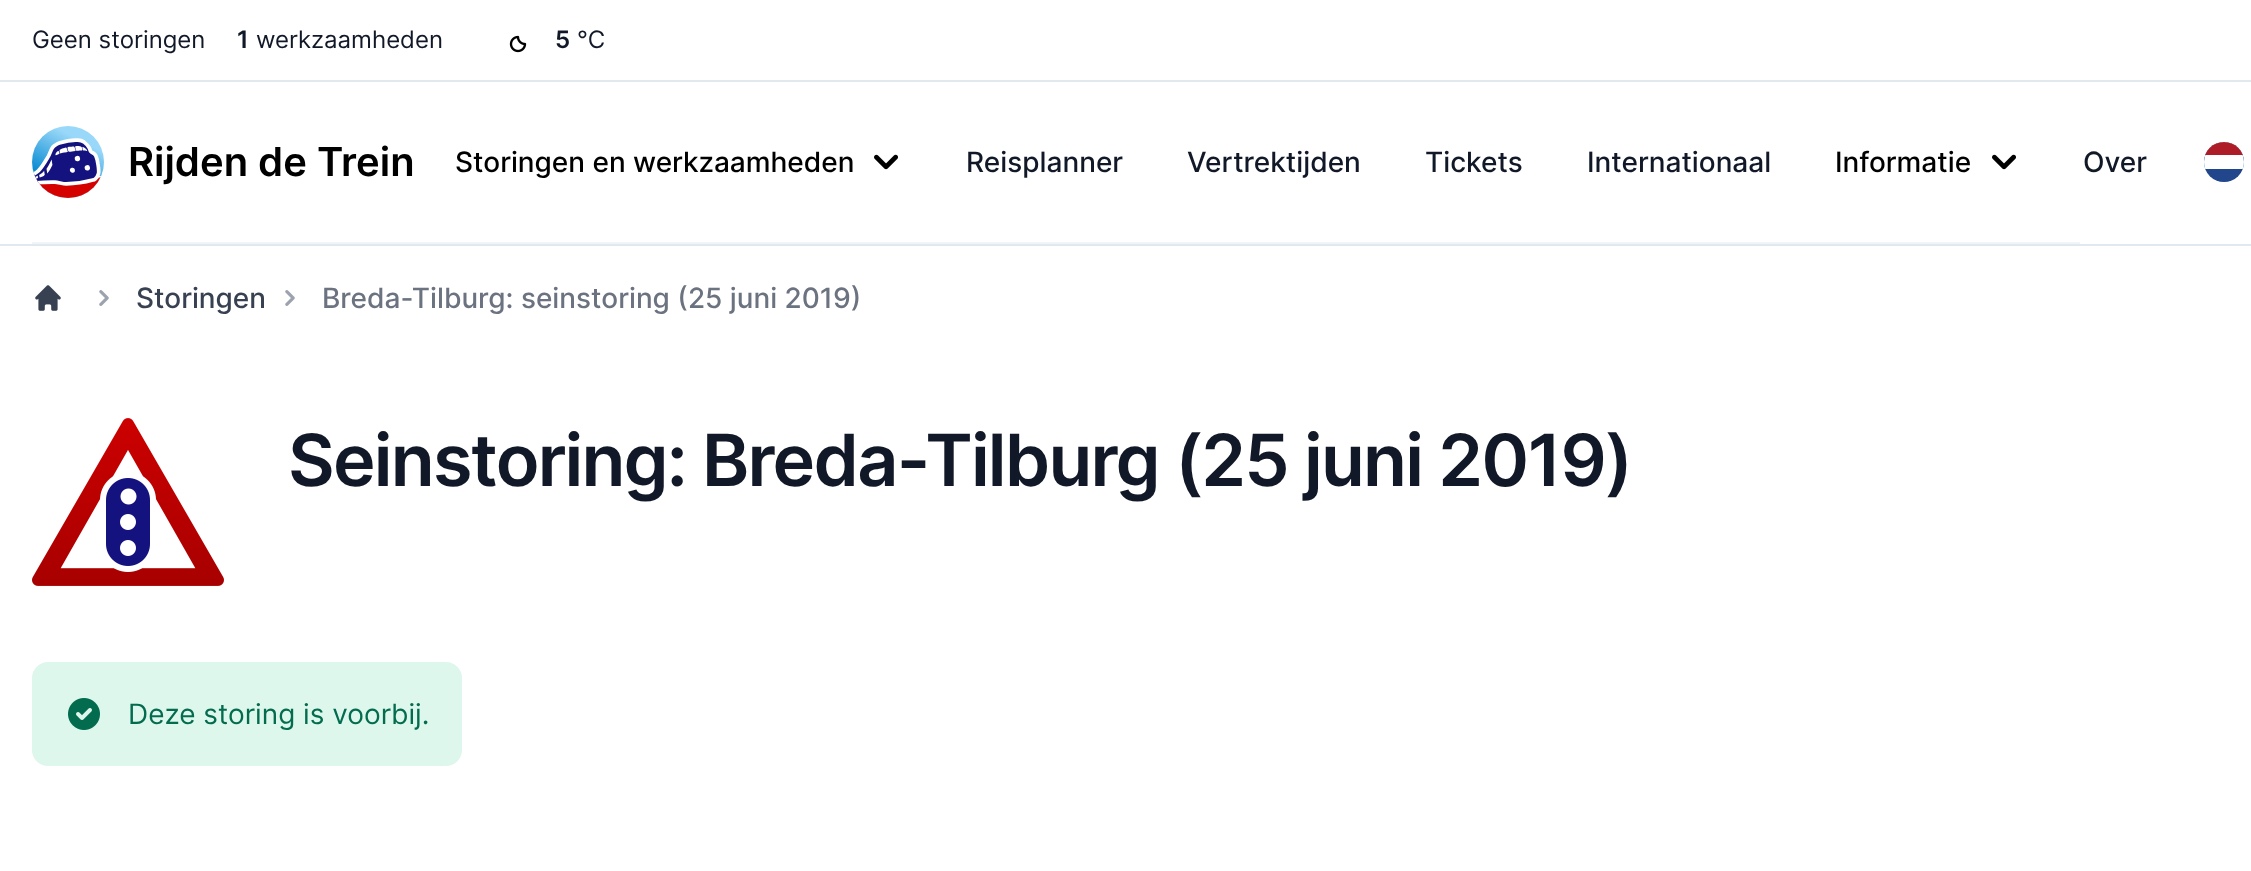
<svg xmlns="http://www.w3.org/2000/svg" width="2251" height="871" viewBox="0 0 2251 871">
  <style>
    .t1 { font: 24px Inter; fill: #111827; }
    .t2 { font: 600 24px Inter; fill: #111827; }
    .t3 { font: 600 40px Inter; fill: #000; }
    .t4 { font: 500 28px Inter; fill: #000; }
    .t5 { font: 500 28px Inter; fill: #111827; }
    .t6 { font: 500 28px Inter; fill: #374151; }
    .t7 { font: 500 28px Inter; fill: #6b7280; }
    .t8 { font: 600 72px Inter; letter-spacing: -1.8px; fill: #111827; }
    .t9 { font: 28px Inter; fill: #046c4e; }
  </style>
  <defs>
    <clipPath id="clip1"><rect x="2204" y="142" width="40" height="40" rx="20"/></clipPath>
  </defs>
  <rect width="100%" height="100%" fill="#fff"/>
  <rect x="0" y="80" width="2251" height="2" fill="#e2e8f0"/>
  <text x="32" y="48" class="t1">Geen storingen</text>
  <text x="237" y="48" class="t2">1</text>
  <text x="256" y="48" class="t1">werkzaamheden</text>
  <image x="509" y="35" width="18" height="18" href="images/1.png"/>
  <text x="555" y="48" class="t2">5</text>
  <text x="577" y="48" class="t1">°C</text>
  <rect x="32" y="242" width="2048" height="2" fill="#f1f5f9"/>
  <image x="32" y="126" width="72" height="72" href="images/2.png"/>
  <text x="128" y="176" class="t3">Rijden de Trein</text>
  <text x="455" y="172" class="t4">Storingen en werkzaamheden</text>
  <image x="874" y="154" width="24" height="16" href="images/3.png"/>
  <text x="966" y="172" class="t5">Reisplanner</text>
  <text x="1187" y="172" class="t5">Vertrektijden</text>
  <text x="1425" y="172" class="t5">Tickets</text>
  <text x="1587" y="172" class="t5">Internationaal</text>
  <text x="1835" y="172" class="t4">Informatie</text>
  <image x="1992" y="154" width="24" height="16" href="images/3.png"/>
  <text x="2083" y="172" class="t5">Over</text>
  <circle cx="2224" cy="162" r="20" fill="#21468b"/>
  <g clip-path="url(#clip1)">
    <path d="M2224 142C2235 142 2244 151 2244 162V169H2204V162C2204 151 2213 142 2224 142Z" fill="#fff"/>
    <rect x="2205" y="142" width="38" height="13" fill="#ae1c28"/>
  </g>
  <rect x="0" y="244" width="2251" height="2" fill="#e2e8f0"/>
  <image x="35" y="285" width="26" height="26" href="images/4.png"/>
  <image x="99" y="290" width="10" height="16" href="images/5.png"/>
  <text x="136" y="308" class="t6">Storingen</text>
  <image x="285" y="290" width="10" height="16" href="images/5.png"/>
  <text x="322" y="308" class="t7">Breda-Tilburg: seinstoring (25 juni 2019)</text>
  <image x="32" y="418" width="192" height="168" href="images/6.png"/>
  <text x="288" y="486" class="t8">Seinstoring: Breda-Tilburg (25 juni 2019)</text>
  <rect x="32" y="662" width="430" height="104" rx="16" fill="#def7ec"/>
  <image x="68" y="698" width="32" height="32" href="images/7.png"/>
  <text x="128" y="724" class="t9">Deze storing is voorbij.</text>
</svg>
